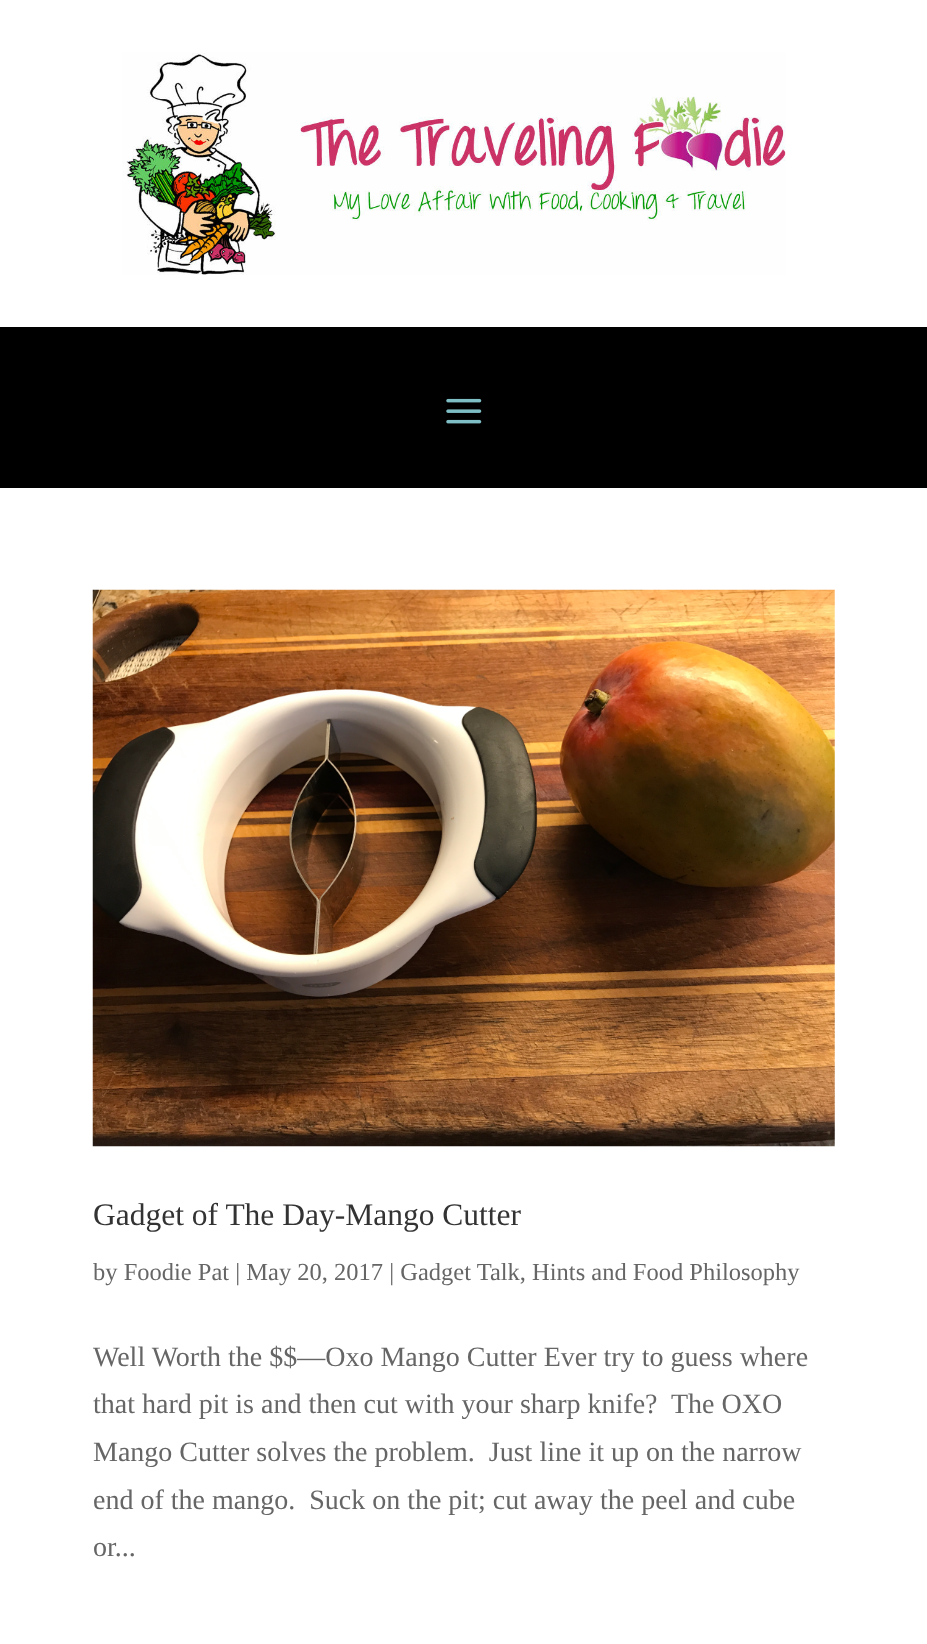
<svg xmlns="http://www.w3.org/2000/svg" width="927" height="1644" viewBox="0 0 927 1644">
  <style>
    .t1 { font: 31.5px Liberation Serif; fill: #333; }
    .t2 { font: 24.5px Liberation Serif; fill: #666; }
    .t3 { font: 28px Liberation Serif; fill: #666; }
  </style>
  <rect width="100%" height="100%" fill="#fff"/>
  <image x="122" y="52" width="664" height="223" href="images/1.png"/>
  <rect x="0" y="327" width="927" height="161" fill="#000"/>
  <image x="446" y="398" width="36" height="26" href="images/2.png"/>
  <image x="92" y="589" width="743" height="558" href="images/3.png"/>
  <text x="93" y="1225" class="t1">Gadget of The Day-Mango Cutter</text>
  <text x="93" y="1280" class="t2">by Foodie Pat | May 20, 2017 | Gadget Talk, Hints and Food Philosophy</text>
  <text x="93" y="1366" class="t3">Well Worth the $$—Oxo Mango Cutter Ever try to guess where</text>
  <text x="93" y="1413" class="t3" xml:space="preserve">that hard pit is and then cut with your sharp knife?  The OXO</text>
  <text x="93" y="1461" class="t3" xml:space="preserve">Mango Cutter solves the problem.  Just line it up on the narrow</text>
  <text x="93" y="1509" class="t3" xml:space="preserve">end of the mango.  Suck on the pit; cut away the peel and cube</text>
  <text x="93" y="1556" class="t3">or...</text>
</svg>
